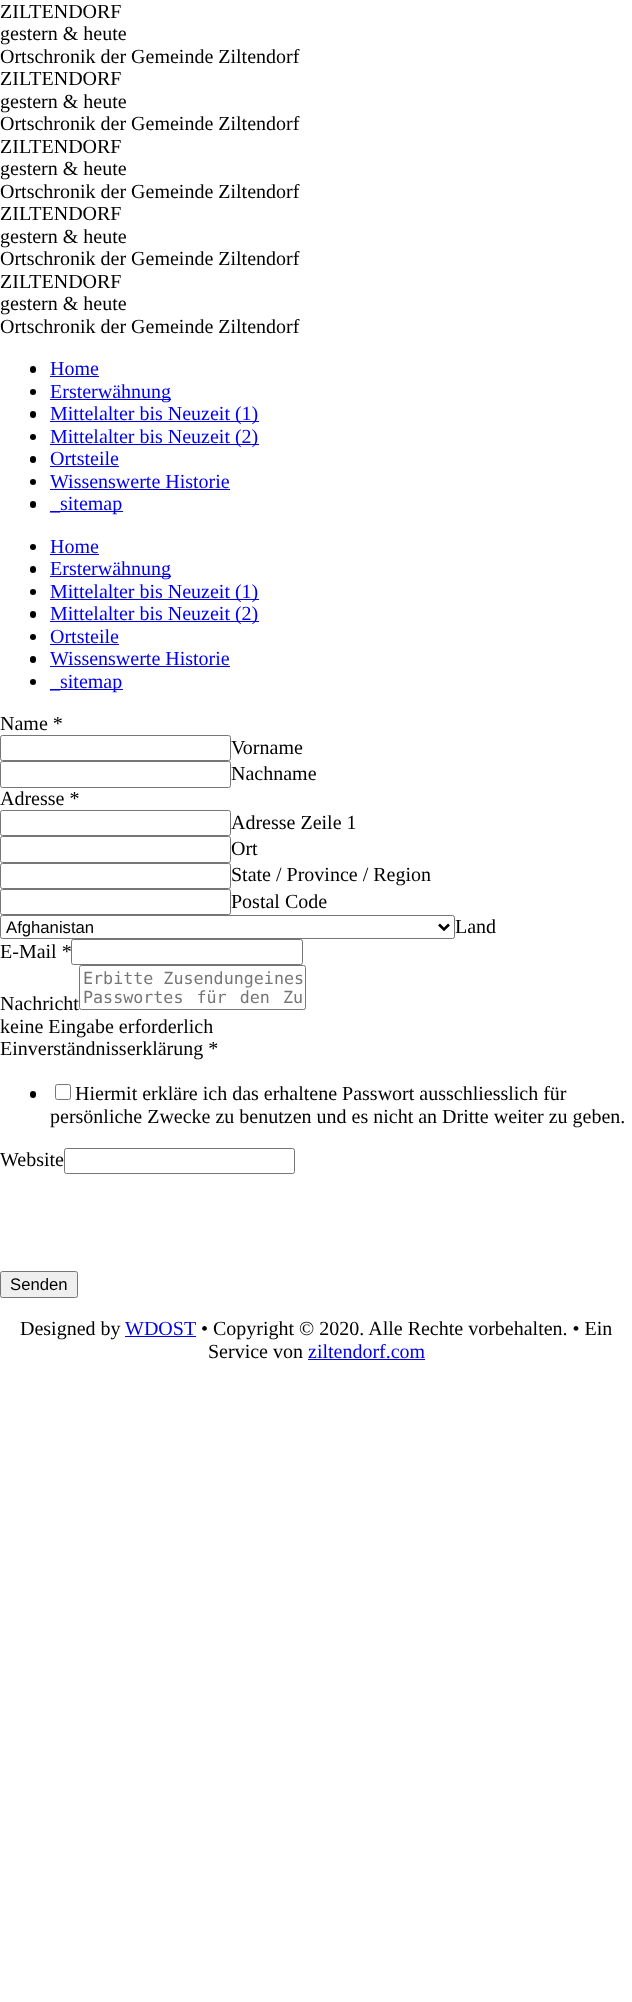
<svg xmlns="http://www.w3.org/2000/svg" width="632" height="2002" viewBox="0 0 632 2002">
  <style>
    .t1 { font: 20px Liberation Serif; fill: #000; }
    .t2 { font: 20px Liberation Serif; fill: #00e; }
    .t3 { font: 16.7px Liberation Sans; fill: #000; }
    .t4 { font: 16.7px DejaVu Sans Mono; fill: #757575; }
  </style>
  <rect width="100%" height="100%" fill="#fff"/>
  <text x="0" y="18" class="t1">ZILTENDORF</text>
  <text x="0" y="40" class="t1">gestern &amp; heute</text>
  <text x="0" y="63" class="t1">Ortschronik der Gemeinde Ziltendorf</text>
  <text x="0" y="85" class="t1">ZILTENDORF</text>
  <text x="0" y="108" class="t1">gestern &amp; heute</text>
  <text x="0" y="130" class="t1">Ortschronik der Gemeinde Ziltendorf</text>
  <text x="0" y="153" class="t1">ZILTENDORF</text>
  <text x="0" y="175" class="t1">gestern &amp; heute</text>
  <text x="0" y="198" class="t1">Ortschronik der Gemeinde Ziltendorf</text>
  <text x="0" y="220" class="t1">ZILTENDORF</text>
  <text x="0" y="243" class="t1">gestern &amp; heute</text>
  <text x="0" y="265" class="t1">Ortschronik der Gemeinde Ziltendorf</text>
  <text x="0" y="288" class="t1">ZILTENDORF</text>
  <text x="0" y="310" class="t1">gestern &amp; heute</text>
  <text x="0" y="333" class="t1">Ortschronik der Gemeinde Ziltendorf</text>
  <rect x="30" y="366" width="6" height="7" rx="3" fill="#000"/>
  <text x="50" y="375" class="t2">Home</text>
  <rect x="50" y="376" width="49" height="1" fill="#00e"/>
  <circle cx="33" cy="392" r="3" fill="#000"/>
  <rect x="50" y="399" width="121" height="1" fill="#00e"/>
  <text x="50" y="398" class="t2">Ersterwähnung</text>
  <rect x="30" y="411" width="6" height="7" rx="3" fill="#000"/>
  <rect x="50" y="421" width="209" height="1" fill="#00e"/>
  <text x="50" y="420" class="t2">Mittelalter bis Neuzeit (1)</text>
  <circle cx="33" cy="437" r="3" fill="#000"/>
  <rect x="50" y="444" width="209" height="1" fill="#00e"/>
  <text x="50" y="443" class="t2">Mittelalter bis Neuzeit (2)</text>
  <rect x="30" y="456" width="6" height="7" rx="3" fill="#000"/>
  <text x="50" y="465" class="t2">Ortsteile</text>
  <rect x="50" y="466" width="69" height="1" fill="#00e"/>
  <circle cx="33" cy="482" r="3" fill="#000"/>
  <text x="50" y="488" class="t2">Wissenswerte Historie</text>
  <rect x="50" y="489" width="180" height="1" fill="#00e"/>
  <rect x="30" y="501" width="6" height="7" rx="3" fill="#000"/>
  <rect x="50" y="511" width="73" height="1" fill="#00e"/>
  <text x="50" y="510" class="t2">_sitemap</text>
  <circle cx="33" cy="547" r="3" fill="#000"/>
  <text x="50" y="553" class="t2">Home</text>
  <rect x="50" y="554" width="49" height="1" fill="#00e"/>
  <rect x="30" y="566" width="6" height="7" rx="3" fill="#000"/>
  <rect x="50" y="576" width="121" height="1" fill="#00e"/>
  <text x="50" y="575" class="t2">Ersterwähnung</text>
  <circle cx="33" cy="592" r="3" fill="#000"/>
  <rect x="50" y="599" width="209" height="1" fill="#00e"/>
  <text x="50" y="598" class="t2">Mittelalter bis Neuzeit (1)</text>
  <rect x="30" y="611" width="6" height="7" rx="3" fill="#000"/>
  <rect x="50" y="621" width="209" height="1" fill="#00e"/>
  <text x="50" y="620" class="t2">Mittelalter bis Neuzeit (2)</text>
  <circle cx="33" cy="637" r="3" fill="#000"/>
  <text x="50" y="643" class="t2">Ortsteile</text>
  <rect x="50" y="644" width="69" height="1" fill="#00e"/>
  <rect x="30" y="656" width="6" height="7" rx="3" fill="#000"/>
  <text x="50" y="665" class="t2">Wissenswerte Historie</text>
  <rect x="50" y="666" width="180" height="1" fill="#00e"/>
  <circle cx="33" cy="682" r="3" fill="#000"/>
  <rect x="50" y="689" width="73" height="1" fill="#00e"/>
  <text x="50" y="688" class="t2">_sitemap</text>
  <text x="0" y="730" class="t1">Name *</text>
  <rect x="0.5" y="735.5" width="230" height="25" rx="2" fill="none" stroke="#767676"/>
  <text x="231" y="754" class="t1">Vorname</text>
  <rect x="0.5" y="761.5" width="230" height="26" rx="2" fill="none" stroke="#767676"/>
  <text x="231" y="780" class="t1">Nachname</text>
  <text x="0" y="805" class="t1">Adresse *</text>
  <rect x="0.5" y="810.5" width="230" height="25" rx="2" fill="none" stroke="#767676"/>
  <text x="231" y="829" class="t1">Adresse Zeile 1</text>
  <rect x="0.5" y="836.5" width="230" height="26" rx="2" fill="none" stroke="#767676"/>
  <text x="231" y="855" class="t1">Ort</text>
  <rect x="0.5" y="863.5" width="230" height="25" rx="2" fill="none" stroke="#767676"/>
  <text x="231" y="881" class="t1">State / Province / Region</text>
  <rect x="0.5" y="889.5" width="230" height="25" rx="2" fill="none" stroke="#767676"/>
  <text x="231" y="908" class="t1">Postal Code</text>
  <rect x="0.5" y="915.5" width="454" height="23" rx="2" fill="none" stroke="#767676"/>
  <path d="M439 924.5L444 929.5L449 924.5" fill="none" stroke="#000" stroke-width="2.5"/>
  <text x="6" y="933" class="t3">Afghanistan</text>
  <text x="455" y="933" class="t1">Land</text>
  <text x="0" y="958" class="t1">E-Mail *</text>
  <rect x="71.5" y="939.5" width="231" height="25" rx="2" fill="none" stroke="#767676"/>
  <text x="0" y="1010" class="t1">Nachricht</text>
  <rect x="79.5" y="965.5" width="226" height="44" rx="2" fill="none" stroke="#767676"/>
  <text x="83" y="984" class="t4">Erbitte Zusendungeines</text>
  <text x="83" y="1003" word-spacing="3" class="t4">Passwortes für den</text>
  <text x="283" y="1003" class="t4">Zu</text>
  <text x="0" y="1033" class="t1">keine Eingabe erforderlich</text>
  <text x="0" y="1055" class="t1">Einverständnisserklärung *</text>
  <rect x="30" y="1091" width="6" height="7" rx="3" fill="#000"/>
  <rect x="55.5" y="1084.5" width="15" height="15" rx="2" fill="none" stroke="#767676"/>
  <text x="75" y="1100" class="t1">Hiermit erkläre ich das erhaltene Passwort ausschliesslich für</text>
  <text x="50" y="1123" class="t1">persönliche Zwecke zu benutzen und es nicht an Dritte weiter zu geben.</text>
  <text x="0" y="1166" class="t1">Website</text>
  <rect x="64.5" y="1148.5" width="230" height="25" rx="2" fill="none" stroke="#767676"/>
  <rect x="0.5" y="1271.5" width="77" height="26" rx="2" fill="#efefef" stroke="#767676"/>
  <text x="10" y="1290" class="t3">Senden</text>
  <text x="20" y="1335" class="t1">Designed by</text>
  <text x="125" y="1335" class="t2">WDOST</text>
  <rect x="125" y="1336" width="71" height="1" fill="#00e"/>
  <text x="201" y="1335" class="t1">• Copyright © 2020. Alle Rechte vorbehalten. • Ein</text>
  <text x="208" y="1358" class="t1">Service von</text>
  <text x="308" y="1358" class="t2">ziltendorf.com</text>
  <rect x="308" y="1359" width="117" height="1" fill="#00e"/>
</svg>
